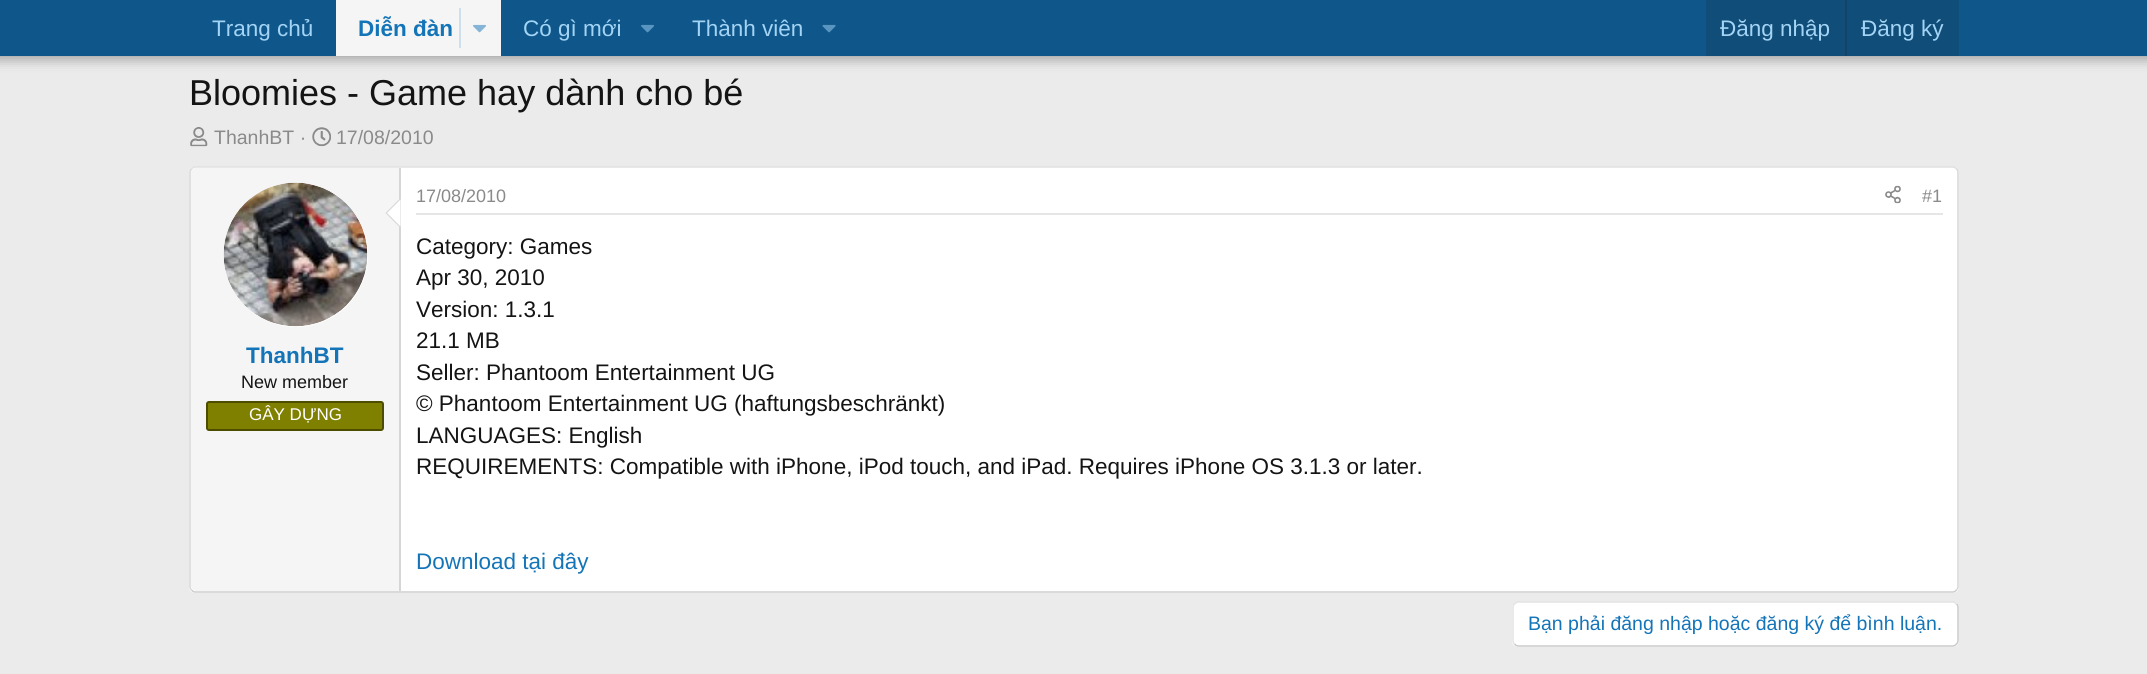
#include <cairo.h>
#include <math.h>
#include <stddef.h>

typedef struct { double x, y; const char *s; } line_t;

static void ink(cairo_t *ctx, unsigned color) {
    cairo_set_source_rgb(ctx, (color >> 16) / 255.0, (color >> 8 & 255) / 255.0, (color & 255) / 255.0);
}

static void round_path(cairo_t *ctx, double x, double y, double w, double h, double r) {
    cairo_new_sub_path(ctx);
    cairo_arc(ctx, x + w - r, y + h - r, r, 0, M_PI / 2);
    cairo_arc(ctx, x + r, y + h - r, r, M_PI / 2, M_PI);
    cairo_arc(ctx, x + r, y + r, r, M_PI, 1.5 * M_PI);
    cairo_arc(ctx, x + w - r, y + r, r, 1.5 * M_PI, 2 * M_PI);
    cairo_close_path(ctx);
}

static void blur_box(cairo_t *ctx, double x, double y, double w, double h, double r, double blur, double alpha) {
    cairo_push_group_with_content(ctx, CAIRO_CONTENT_ALPHA);
    cairo_set_operator(ctx, CAIRO_OPERATOR_SOURCE);
    for (int i = 15; i >= -15 && fmin(w, h) + blur * i / 3 > 0; i -= 2) {
        double e = blur * i / 6;
        cairo_set_source_rgba(ctx, 0, 0, 0, alpha * erfc((i - 1) / 8.5) / 2);
        round_path(ctx, x - e, y - e, w + 2 * e, h + 2 * e, fmax(0, fmin(r + e + blur * .6, fmin(w, h) / 2 + e)));
        cairo_fill(ctx);
    }
    cairo_pattern_t *soft = cairo_pop_group(ctx);
    cairo_mask(ctx, soft);
    cairo_pattern_destroy(soft);
}

static void paste(cairo_t *ctx, const char *path, double x, double y, double w, double h) {
    cairo_surface_t *image = cairo_image_surface_create_from_png(path);
    cairo_save(ctx);
    cairo_set_source_surface(ctx, image, x, y);
    cairo_rectangle(ctx, x, y, w, h);
    cairo_fill(ctx);
    cairo_restore(ctx);
    cairo_surface_destroy(image);
}

int main(void) {
    cairo_surface_t *surface = cairo_image_surface_create(CAIRO_FORMAT_RGB24, 2147, 674);
    cairo_t *ctx = cairo_create(surface);
    cairo_font_options_t *options = cairo_font_options_create();
    cairo_font_options_set_hint_metrics(options, CAIRO_HINT_METRICS_OFF);
    cairo_font_options_set_hint_style(options, CAIRO_HINT_STYLE_NONE);
    cairo_set_font_options(ctx, options);
    cairo_set_miter_limit(ctx, 4);
    ink(ctx, 0xEBEBEB);
    cairo_paint(ctx);
    ink(ctx, 0x000000);
    blur_box(ctx, -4, -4, 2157, 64, 0, 6, 0.3);
    ink(ctx, 0x0F578A);
    cairo_rectangle(ctx, 0, 0, 2147, 56);
    cairo_fill(ctx);
    cairo_select_font_face(ctx, "Liberation Sans", CAIRO_FONT_SLANT_NORMAL, CAIRO_FONT_WEIGHT_NORMAL);
    cairo_set_font_size(ctx, 22.5);
    ink(ctx, 0xA3D4F5);
    cairo_move_to(ctx, 212, 36);
    cairo_show_text(ctx, "Trang chủ");
    ink(ctx, 0xF5F5F5);
    cairo_rectangle(ctx, 336, 0, 165, 56);
    cairo_fill(ctx);
    cairo_select_font_face(ctx, "Liberation Sans", CAIRO_FONT_SLANT_NORMAL, CAIRO_FONT_WEIGHT_BOLD);
    ink(ctx, 0x1474B8);
    cairo_move_to(ctx, 358, 36);
    cairo_show_text(ctx, "Diễn đàn");
    ink(ctx, 0xCEDFEB);
    cairo_rectangle(ctx, 459, 8, 2, 40);
    cairo_fill(ctx);
    paste(ctx, "media/1.png", 473, 24, 13, 9);
    cairo_select_font_face(ctx, "Liberation Sans", CAIRO_FONT_SLANT_NORMAL, CAIRO_FONT_WEIGHT_NORMAL);
    ink(ctx, 0xA3D4F5);
    cairo_move_to(ctx, 523, 36);
    cairo_show_text(ctx, "Có gì mới");
    paste(ctx, "media/2.png", 641, 24, 13, 9);
    cairo_move_to(ctx, 692, 36);
    cairo_show_text(ctx, "Thành viên");
    paste(ctx, "media/3.png", 822, 24, 14, 9);
    ink(ctx, 0x104D78);
    cairo_rectangle(ctx, 1706, 0, 253, 56);
    cairo_fill(ctx);
    ink(ctx, 0xA3D4F5);
    cairo_move_to(ctx, 1720, 36);
    cairo_show_text(ctx, "Đăng nhập");
    ink(ctx, 0x114469);
    cairo_rectangle(ctx, 1845, 0, 2, 56);
    cairo_fill(ctx);
    ink(ctx, 0xA3D4F5);
    cairo_move_to(ctx, 1861, 36);
    cairo_show_text(ctx, "Đăng ký");
    cairo_set_font_size(ctx, 36);
    ink(ctx, 0x141414);
    cairo_move_to(ctx, 189, 105);
    cairo_show_text(ctx, "Bloomies - Game hay dành cho bé");
    paste(ctx, "media/4.png", 190, 127, 18, 20);
    cairo_set_font_size(ctx, 19.5);
    ink(ctx, 0x8A8A8A);
    cairo_move_to(ctx, 214, 144);
    cairo_show_text(ctx, "ThanhBT ·");
    paste(ctx, "media/5.png", 312, 127, 19, 20);
    cairo_move_to(ctx, 336, 144);
    cairo_show_text(ctx, "17/08/2010");
    ink(ctx, 0xFFFFFF);
    round_path(ctx, 189, 167, 1770, 426, 6);
    cairo_fill(ctx);
    cairo_new_path(ctx);
    cairo_move_to(ctx, 191.5, 169);
    cairo_curve_to(ctx, 192.5, 168, 193.5, 167, 195, 167);
    cairo_line_to(ctx, 1953, 167);
    cairo_curve_to(ctx, 1954.5, 167, 1955.5, 168, 1956.5, 169);
    ink(ctx, 0xE0E0E0);
    cairo_set_line_width(ctx, 1.5);
    cairo_stroke(ctx);
    cairo_new_path(ctx);
    cairo_move_to(ctx, 1956.5, 169);
    cairo_curve_to(ctx, 1957.5, 170, 1958, 171, 1958, 172.5);
    cairo_line_to(ctx, 1958, 586.5);
    cairo_curve_to(ctx, 1958, 588, 1957.5, 589, 1956.5, 590);
    ink(ctx, 0xD6D6D6);
    cairo_stroke(ctx);
    cairo_new_path(ctx);
    cairo_move_to(ctx, 1956.5, 590);
    cairo_curve_to(ctx, 1955.5, 591, 1954.5, 592, 1953, 592);
    cairo_line_to(ctx, 195, 592);
    cairo_curve_to(ctx, 193.5, 592, 192.5, 591, 191.5, 590);
    ink(ctx, 0xCCCCCC);
    cairo_stroke(ctx);
    cairo_new_path(ctx);
    cairo_move_to(ctx, 191.5, 590);
    cairo_curve_to(ctx, 190.5, 589, 190, 588, 190, 586.5);
    cairo_line_to(ctx, 190, 172.5);
    cairo_curve_to(ctx, 190, 171, 190.5, 170, 191.5, 169);
    ink(ctx, 0xD6D6D6);
    cairo_stroke(ctx);
    ink(ctx, 0xF5F5F5);
    cairo_new_path(ctx);
    cairo_move_to(ctx, 196, 168);
    cairo_line_to(ctx, 401, 168);
    cairo_line_to(ctx, 401, 591);
    cairo_line_to(ctx, 196, 591);
    cairo_curve_to(ctx, 193, 591, 191, 589, 191, 586);
    cairo_line_to(ctx, 191, 173);
    cairo_curve_to(ctx, 191, 170, 193, 168, 196, 168);
    cairo_close_path(ctx);
    cairo_fill(ctx);
    ink(ctx, 0xD6D6D6);
    cairo_rectangle(ctx, 399, 168, 2, 423);
    cairo_fill(ctx);
    ink(ctx, 0xFFFFFF);
    cairo_arc(ctx, 296, 255, 72, 0, 2 * M_PI);
    cairo_fill(ctx);
    paste(ctx, "media/6.png", 223, 182, 145, 145);
    ink(ctx, 0xD6D6D6);
    cairo_new_path(ctx);
    cairo_move_to(ctx, 400.5, 198);
    cairo_line_to(ctx, 400.5, 228);
    cairo_line_to(ctx, 385.5, 213);
    cairo_close_path(ctx);
    cairo_fill(ctx);
    ink(ctx, 0xFFFFFF);
    cairo_new_path(ctx);
    cairo_move_to(ctx, 400.5, 199.5);
    cairo_line_to(ctx, 400.5, 226.5);
    cairo_line_to(ctx, 387, 213);
    cairo_close_path(ctx);
    cairo_fill(ctx);
    cairo_select_font_face(ctx, "Liberation Sans", CAIRO_FONT_SLANT_NORMAL, CAIRO_FONT_WEIGHT_BOLD);
    cairo_set_font_size(ctx, 22.5);
    ink(ctx, 0x1474B8);
    cairo_move_to(ctx, 246, 363);
    cairo_show_text(ctx, "ThanhBT");
    cairo_select_font_face(ctx, "Liberation Sans", CAIRO_FONT_SLANT_NORMAL, CAIRO_FONT_WEIGHT_NORMAL);
    cairo_set_font_size(ctx, 18);
    ink(ctx, 0x141414);
    cairo_move_to(ctx, 241, 388);
    cairo_show_text(ctx, "New member");
    ink(ctx, 0x808000);
    round_path(ctx, 207, 402, 176, 28, 2);
    cairo_fill_preserve(ctx);
    ink(ctx, 0x4D4D00);
    cairo_set_line_width(ctx, 2);
    cairo_stroke(ctx);
    cairo_set_font_size(ctx, 17);
    ink(ctx, 0xFFFFFF);
    cairo_move_to(ctx, 249, 420);
    cairo_show_text(ctx, "GÂY DỰNG");
    ink(ctx, 0xE6E6E6);
    cairo_rectangle(ctx, 416, 213, 1527, 2);
    cairo_fill(ctx);
    cairo_set_font_size(ctx, 18);
    ink(ctx, 0x8A8A8A);
    cairo_move_to(ctx, 416, 202);
    cairo_show_text(ctx, "17/08/2010");
    paste(ctx, "media/7.png", 1885, 185, 16, 19);
    cairo_move_to(ctx, 1922, 202);
    cairo_show_text(ctx, "#1");
    cairo_set_font_size(ctx, 22.5);
    ink(ctx, 0x141414);
    {
        static const line_t items[] = {
            {416, 254, "Category: Games"},
            {416, 285, "Apr 30, 2010"},
            {416, 317, "Version: 1.3.1"},
            {416, 348, "21.1 MB"},
            {416, 380, "Seller: Phantoom Entertainment UG"},
            {416, 411, "© Phantoom Entertainment UG (haftungsbeschränkt)"},
            {416, 443, "LANGUAGES: English"},
            {416, 474, "REQUIREMENTS: Compatible with iPhone, iPod touch, and iPad. Requires iPhone OS 3.1.3 or later."},
        };
        for (size_t i = 0; i < sizeof items / sizeof *items; i++) {
            cairo_move_to(ctx, items[i].x, items[i].y);
            cairo_show_text(ctx, items[i].s);
        }
    }
    ink(ctx, 0x1474B8);
    cairo_move_to(ctx, 416, 569);
    cairo_show_text(ctx, "Download tại đây");
    ink(ctx, 0xFFFFFF);
    round_path(ctx, 1512, 602, 447, 45, 6);
    cairo_fill(ctx);
    cairo_new_path(ctx);
    cairo_move_to(ctx, 1956.5, 604);
    cairo_curve_to(ctx, 1957.5, 605, 1958, 606, 1958, 607.5);
    cairo_line_to(ctx, 1958, 640.5);
    cairo_curve_to(ctx, 1958, 642, 1957.5, 643, 1956.5, 644);
    cairo_curve_to(ctx, 1955.5, 645, 1954.5, 646, 1953, 646);
    cairo_line_to(ctx, 1518, 646);
    cairo_curve_to(ctx, 1516.5, 646, 1515.5, 645, 1514.5, 644);
    ink(ctx, 0xC9C9C9);
    cairo_set_line_width(ctx, 1.5);
    cairo_stroke(ctx);
    cairo_new_path(ctx);
    cairo_move_to(ctx, 1514.5, 644);
    cairo_curve_to(ctx, 1513.5, 643, 1513, 642, 1513, 640.5);
    cairo_line_to(ctx, 1513, 607.5);
    cairo_curve_to(ctx, 1513, 606, 1513.5, 605, 1514.5, 604);
    cairo_curve_to(ctx, 1515.5, 603, 1516.5, 602, 1518, 602);
    cairo_line_to(ctx, 1953, 602);
    cairo_curve_to(ctx, 1954.5, 602, 1955.5, 603, 1956.5, 604);
    ink(ctx, 0xE3E3E3);
    cairo_stroke(ctx);
    cairo_set_font_size(ctx, 19.5);
    ink(ctx, 0x1474B8);
    cairo_move_to(ctx, 1528, 630);
    cairo_show_text(ctx, "Bạn phải đăng nhập hoặc đăng ký để bình luận.");
    cairo_surface_write_to_png(surface, "image.png");
    cairo_font_options_destroy(options);
    cairo_destroy(ctx);
    cairo_surface_destroy(surface);
    return 0;
}
